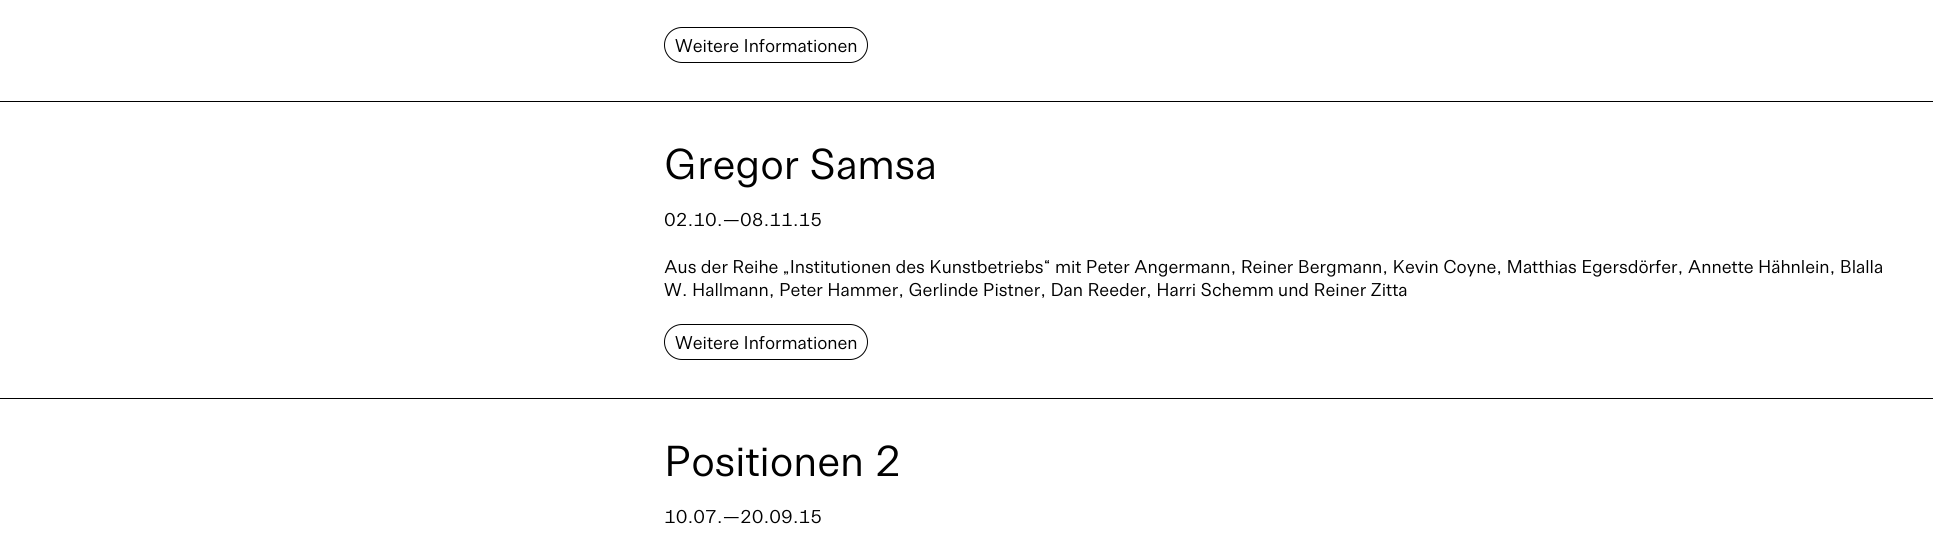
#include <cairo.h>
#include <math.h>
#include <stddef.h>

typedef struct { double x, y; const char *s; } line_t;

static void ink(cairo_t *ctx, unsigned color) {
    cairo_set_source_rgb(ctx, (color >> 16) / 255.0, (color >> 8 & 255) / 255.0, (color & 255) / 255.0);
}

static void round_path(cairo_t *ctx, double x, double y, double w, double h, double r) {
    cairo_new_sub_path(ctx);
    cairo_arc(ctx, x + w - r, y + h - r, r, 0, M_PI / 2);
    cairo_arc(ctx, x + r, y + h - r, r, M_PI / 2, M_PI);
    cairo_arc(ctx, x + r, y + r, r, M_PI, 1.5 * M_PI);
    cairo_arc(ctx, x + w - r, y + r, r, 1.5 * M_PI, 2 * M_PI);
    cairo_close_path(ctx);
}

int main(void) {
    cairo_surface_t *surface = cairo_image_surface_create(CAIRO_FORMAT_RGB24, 1933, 560);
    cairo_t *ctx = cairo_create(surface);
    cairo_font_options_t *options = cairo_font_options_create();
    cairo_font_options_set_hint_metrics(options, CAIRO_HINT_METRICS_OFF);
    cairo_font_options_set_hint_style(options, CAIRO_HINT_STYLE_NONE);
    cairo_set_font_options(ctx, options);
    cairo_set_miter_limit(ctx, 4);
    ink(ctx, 0xFFFFFF);
    cairo_paint(ctx);
    round_path(ctx, 664.5, 27.5, 203, 35, 17.5);
    ink(ctx, 0x000000);
    cairo_set_line_width(ctx, 1);
    cairo_stroke(ctx);
    cairo_select_font_face(ctx, "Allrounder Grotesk", CAIRO_FONT_SLANT_NORMAL, CAIRO_FONT_WEIGHT_NORMAL);
    cairo_set_font_size(ctx, 18);
    cairo_move_to(ctx, 675, 52);
    cairo_show_text(ctx, "Weitere Informationen");
    cairo_rectangle(ctx, 0, 101, 1933, 1);
    cairo_fill(ctx);
    cairo_set_font_size(ctx, 42);
    cairo_move_to(ctx, 664, 179);
    cairo_show_text(ctx, "Gregor Samsa");
    cairo_set_font_size(ctx, 18);
    {
        static const line_t items[] = {
            {664, 226, "02.10.—08.11.15"},
            {664, 273, "Aus der Reihe „Institutionen des Kunstbetriebs“ mit Peter Angermann, Reiner Bergmann, Kevin Coyne, Matthias Egersdörfer, Annette Hähnlein, Blalla"},
            {664, 296, "W. Hallmann, Peter Hammer, Gerlinde Pistner, Dan Reeder, Harri Schemm und Reiner Zitta"},
        };
        for (size_t i = 0; i < sizeof items / sizeof *items; i++) {
            cairo_move_to(ctx, items[i].x, items[i].y);
            cairo_show_text(ctx, items[i].s);
        }
    }
    round_path(ctx, 664.5, 324.5, 203, 35, 17.5);
    cairo_stroke(ctx);
    cairo_move_to(ctx, 675, 349);
    cairo_show_text(ctx, "Weitere Informationen");
    cairo_rectangle(ctx, 0, 398, 1933, 1);
    cairo_fill(ctx);
    cairo_set_font_size(ctx, 42);
    cairo_move_to(ctx, 664, 476);
    cairo_show_text(ctx, "Positionen 2");
    cairo_set_font_size(ctx, 18);
    cairo_move_to(ctx, 664, 523);
    cairo_show_text(ctx, "10.07.—20.09.15");
    cairo_surface_write_to_png(surface, "image.png");
    cairo_font_options_destroy(options);
    cairo_destroy(ctx);
    cairo_surface_destroy(surface);
    return 0;
}
